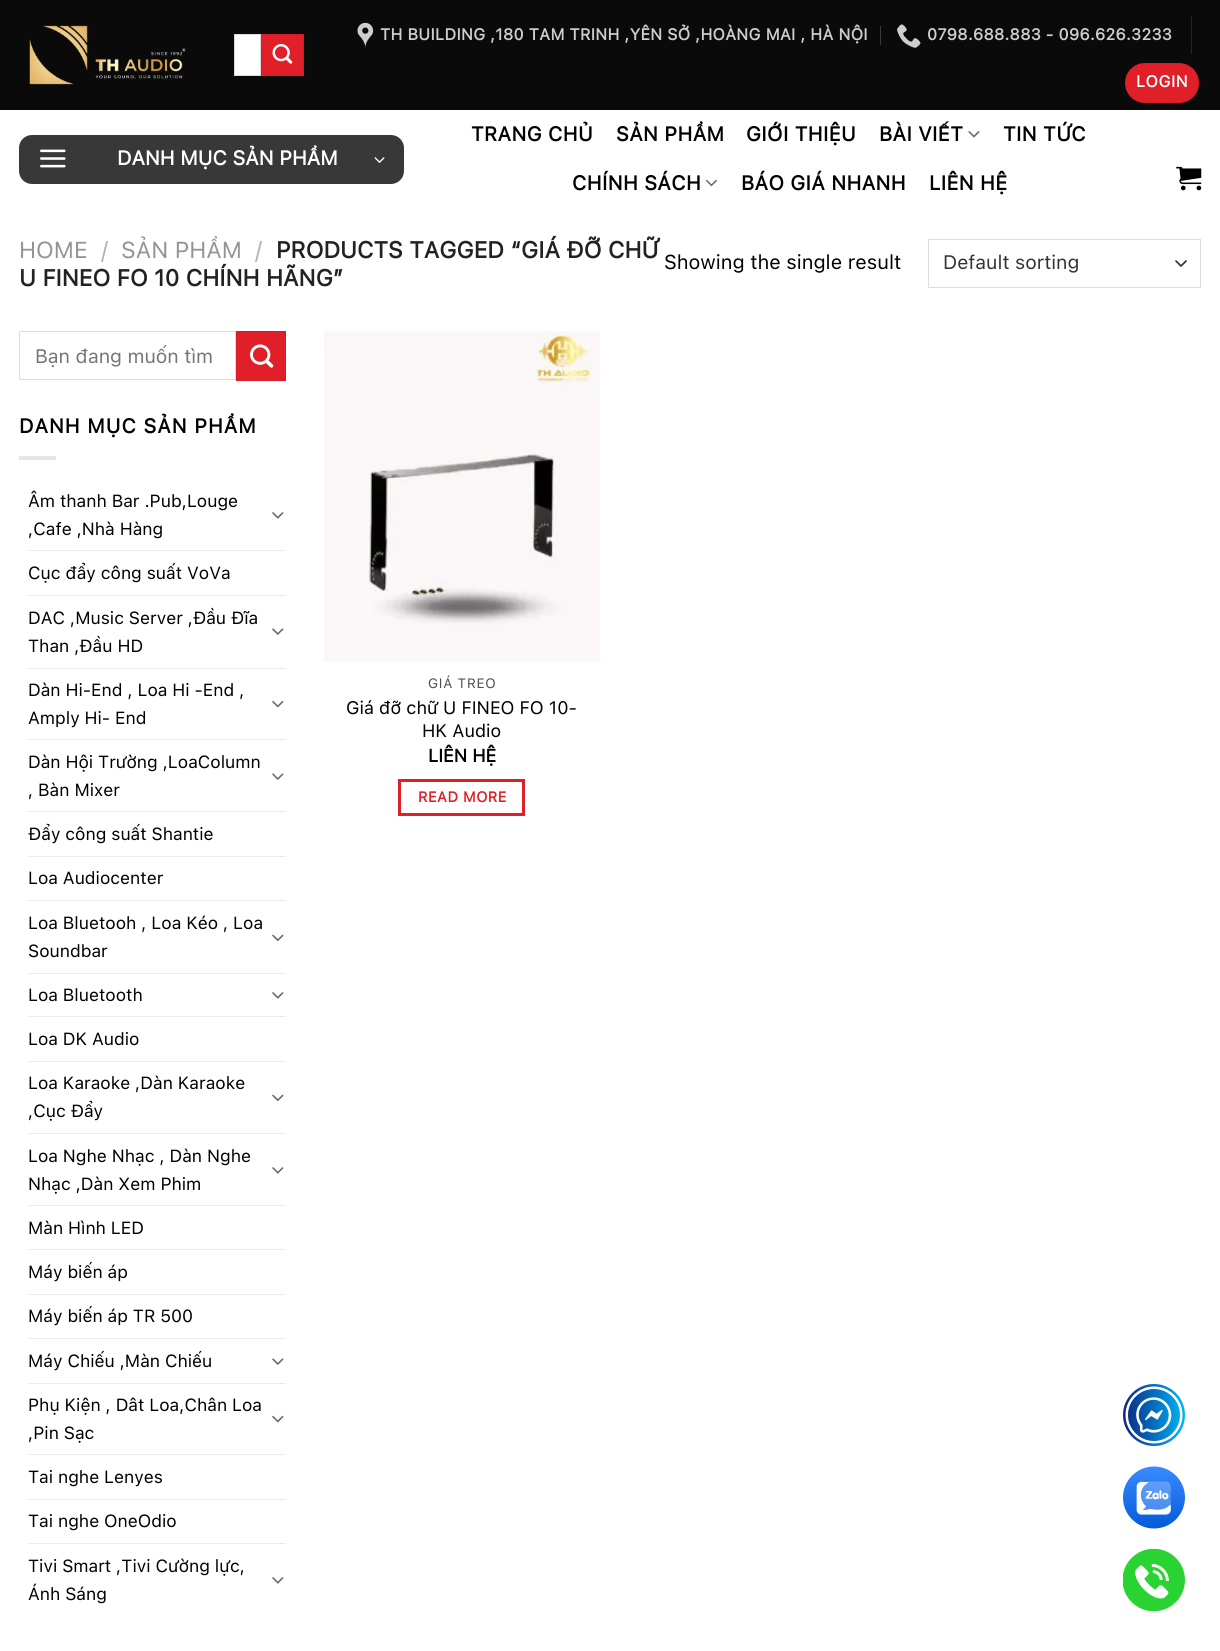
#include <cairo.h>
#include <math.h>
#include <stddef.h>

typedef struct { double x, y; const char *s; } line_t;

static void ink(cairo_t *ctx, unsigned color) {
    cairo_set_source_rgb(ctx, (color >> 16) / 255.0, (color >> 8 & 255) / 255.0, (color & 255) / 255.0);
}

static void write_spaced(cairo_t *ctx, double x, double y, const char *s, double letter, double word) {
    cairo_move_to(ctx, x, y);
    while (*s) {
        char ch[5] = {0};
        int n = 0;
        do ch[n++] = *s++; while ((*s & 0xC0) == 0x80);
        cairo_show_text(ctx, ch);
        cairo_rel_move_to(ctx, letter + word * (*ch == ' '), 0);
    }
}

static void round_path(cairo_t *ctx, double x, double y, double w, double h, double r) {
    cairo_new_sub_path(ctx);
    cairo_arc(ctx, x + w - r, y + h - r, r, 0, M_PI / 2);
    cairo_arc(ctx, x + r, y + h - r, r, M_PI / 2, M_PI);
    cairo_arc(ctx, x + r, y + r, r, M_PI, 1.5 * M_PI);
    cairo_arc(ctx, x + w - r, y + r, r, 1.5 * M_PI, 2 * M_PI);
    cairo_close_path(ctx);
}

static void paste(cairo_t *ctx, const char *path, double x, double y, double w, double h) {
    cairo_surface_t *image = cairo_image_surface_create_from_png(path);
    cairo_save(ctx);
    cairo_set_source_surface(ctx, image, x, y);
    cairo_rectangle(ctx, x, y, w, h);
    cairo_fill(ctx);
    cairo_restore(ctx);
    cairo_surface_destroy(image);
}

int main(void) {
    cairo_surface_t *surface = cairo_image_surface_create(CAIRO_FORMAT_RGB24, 1220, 1651);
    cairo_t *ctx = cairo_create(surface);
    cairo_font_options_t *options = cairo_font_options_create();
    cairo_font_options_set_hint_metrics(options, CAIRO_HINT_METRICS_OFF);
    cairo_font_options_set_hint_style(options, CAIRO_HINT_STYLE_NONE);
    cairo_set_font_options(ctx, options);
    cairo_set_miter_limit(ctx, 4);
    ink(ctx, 0xFFFFFF);
    cairo_paint(ctx);
    ink(ctx, 0x0A0A0A);
    cairo_rectangle(ctx, 0, 0, 1220, 110);
    cairo_fill(ctx);
    paste(ctx, "media/1.png", 29, 25, 157, 60);
    ink(ctx, 0xFFFFFF);
    cairo_rectangle(ctx, 234.5, 34.5, 26, 41);
    cairo_fill_preserve(ctx);
    ink(ctx, 0xDDDDDD);
    cairo_set_line_width(ctx, 1);
    cairo_stroke(ctx);
    ink(ctx, 0xE01F28);
    cairo_rectangle(ctx, 261.5, 34.5, 42, 41);
    cairo_fill_preserve(ctx);
    ink(ctx, 0xD51D26);
    cairo_stroke(ctx);
    paste(ctx, "media/2.png", 272, 43, 21, 21);
    paste(ctx, "media/3.png", 357, 22, 17, 26);
    cairo_select_font_face(ctx, "SF Pro Text", CAIRO_FONT_SLANT_NORMAL, CAIRO_FONT_WEIGHT_BOLD);
    cairo_set_font_size(ctx, 16);
    ink(ctx, 0xCECECE);
    write_spaced(ctx, 380, 40, "TH BUILDING ,180 TAM TRINH ,YÊN SỞ ,HOÀNG MAI , HÀ NỘI", 0.32, 0);
    ink(ctx, 0x3B3B3B);
    cairo_rectangle(ctx, 880, 26, 1, 19);
    cairo_fill(ctx);
    paste(ctx, "media/4.png", 897, 24, 24, 24);
    ink(ctx, 0xCECECE);
    write_spaced(ctx, 927, 40, "0798.688.883 - 096.626.3233", 0.32, 0);
    ink(ctx, 0x232323);
    cairo_rectangle(ctx, 1191, 16, 1, 38);
    cairo_fill(ctx);
    ink(ctx, 0xE01F28);
    round_path(ctx, 1125, 63, 74, 40, 20);
    cairo_fill(ctx);
    cairo_rectangle(ctx, 1125.5, 63.5, 73, 39);
    cairo_set_source_rgba(ctx, 0, 0, 0, 0.05);
    cairo_stroke(ctx);
    ink(ctx, 0xFFFFFF);
    write_spaced(ctx, 1136, 87, "LOGIN", 0.5, 0);
    ink(ctx, 0x383838);
    round_path(ctx, 19, 135, 385, 49, 13);
    cairo_fill(ctx);
    paste(ctx, "media/5.png", 40, 149, 26, 19);
    cairo_set_font_size(ctx, 20);
    ink(ctx, 0xFFFFFF);
    cairo_move_to(ctx, 117, 165);
    cairo_show_text(ctx, "DANH MỤC SẢN PHẨM");
    paste(ctx, "media/6.png", 374, 157, 11, 6);
    ink(ctx, 0x000000);
    {
        static const line_t items[] = {
            {471, 141, "TRANG CHỦ"},
            {616, 141, "SẢN PHẨM"},
            {746, 141, "GIỚI THIỆU"},
            {879, 141, "BÀI VIẾT"},
        };
        for (size_t i = 0; i < sizeof items / sizeof *items; i++) {
            write_spaced(ctx, items[i].x, items[i].y, items[i].s, 0.4, 0);
        }
    }
    paste(ctx, "media/7.png", 968, 131, 12, 7);
    write_spaced(ctx, 1003, 141, "TIN TỨC", 0.4, 0);
    write_spaced(ctx, 572, 190, "CHÍNH SÁCH", 0.4, 0);
    paste(ctx, "media/8.png", 705, 179, 12, 8);
    write_spaced(ctx, 741, 190, "BÁO GIÁ NHANH", 0.4, 0);
    write_spaced(ctx, 929, 190, "LIÊN HỆ", 0.4, 0);
    paste(ctx, "media/9.png", 1176, 166, 26, 25);
    cairo_select_font_face(ctx, "SF Pro Text", CAIRO_FONT_SLANT_NORMAL, CAIRO_FONT_WEIGHT_NORMAL);
    cairo_set_font_size(ctx, 23);
    ink(ctx, 0x949494);
    cairo_move_to(ctx, 19, 258);
    cairo_show_text(ctx, "HOME");
    ink(ctx, 0xB2B2B2);
    cairo_move_to(ctx, 101, 258);
    cairo_show_text(ctx, "/");
    ink(ctx, 0x949494);
    cairo_move_to(ctx, 121, 258);
    cairo_show_text(ctx, "SẢN PHẨM");
    ink(ctx, 0xB2B2B2);
    cairo_move_to(ctx, 255, 258);
    cairo_show_text(ctx, "/");
    cairo_select_font_face(ctx, "SF Pro Text", CAIRO_FONT_SLANT_NORMAL, CAIRO_FONT_WEIGHT_BOLD);
    ink(ctx, 0x222222);
    cairo_move_to(ctx, 276, 258);
    cairo_show_text(ctx, "PRODUCTS TAGGED “GIÁ ĐỠ CHỮ");
    cairo_move_to(ctx, 19, 286);
    cairo_show_text(ctx, "U FINEO FO 10 CHÍNH HÃNG”");
    cairo_select_font_face(ctx, "SF Pro Text", CAIRO_FONT_SLANT_NORMAL, CAIRO_FONT_WEIGHT_NORMAL);
    cairo_set_font_size(ctx, 20);
    ink(ctx, 0x000000);
    cairo_move_to(ctx, 664, 269);
    cairo_show_text(ctx, "Showing the single result");
    cairo_new_path(ctx);
    cairo_move_to(ctx, 1176, 261);
    cairo_line_to(ctx, 1181, 266);
    cairo_line_to(ctx, 1186, 261);
    ink(ctx, 0x333333);
    cairo_set_line_width(ctx, 1.7);
    cairo_set_line_cap(ctx, CAIRO_LINE_CAP_ROUND);
    cairo_set_line_join(ctx, CAIRO_LINE_JOIN_ROUND);
    cairo_stroke(ctx);
    cairo_rectangle(ctx, 928.5, 239.5, 272, 48);
    ink(ctx, 0xDDDDDD);
    cairo_set_line_width(ctx, 1);
    cairo_set_line_cap(ctx, CAIRO_LINE_CAP_BUTT);
    cairo_set_line_join(ctx, CAIRO_LINE_JOIN_MITER);
    cairo_stroke(ctx);
    cairo_set_font_size(ctx, 19.5);
    ink(ctx, 0x333333);
    cairo_move_to(ctx, 943, 269);
    cairo_show_text(ctx, "Default sorting");
    cairo_rectangle(ctx, 19.5, 331.5, 216, 48);
    ink(ctx, 0xDDDDDD);
    cairo_stroke(ctx);
    ink(ctx, 0x757575);
    cairo_move_to(ctx, 35, 363);
    cairo_show_text(ctx, "Bạn đang muốn tìm");
    ink(ctx, 0xE01F28);
    cairo_rectangle(ctx, 236.5, 331.5, 49, 49);
    cairo_fill_preserve(ctx);
    ink(ctx, 0xD51D26);
    cairo_stroke(ctx);
    paste(ctx, "media/10.png", 250, 344, 24, 24);
    cairo_select_font_face(ctx, "SF Pro Text", CAIRO_FONT_SLANT_NORMAL, CAIRO_FONT_WEIGHT_BOLD);
    cairo_set_font_size(ctx, 20);
    ink(ctx, 0x000000);
    write_spaced(ctx, 19, 433, "DANH MỤC SẢN PHẨM", 1, 0);
    ink(ctx, 0xE6E6E6);
    cairo_rectangle(ctx, 19, 456, 37, 4);
    cairo_fill(ctx);
    cairo_select_font_face(ctx, "SF Pro Text", CAIRO_FONT_SLANT_NORMAL, CAIRO_FONT_WEIGHT_NORMAL);
    cairo_set_font_size(ctx, 17.5);
    ink(ctx, 0x000000);
    cairo_move_to(ctx, 28, 507);
    cairo_show_text(ctx, "Âm thanh Bar .Pub,Louge");
    cairo_move_to(ctx, 28, 535);
    cairo_show_text(ctx, ",Cafe ,Nhà Hàng");
    paste(ctx, "media/11.png", 272, 512, 12, 7);
    ink(ctx, 0xECECEC);
    cairo_rectangle(ctx, 28, 550, 258, 1);
    cairo_fill(ctx);
    ink(ctx, 0x000000);
    cairo_move_to(ctx, 28, 579);
    cairo_show_text(ctx, "Cục đẩy công suất VoVa");
    ink(ctx, 0xECECEC);
    cairo_rectangle(ctx, 28, 595, 258, 1);
    cairo_fill(ctx);
    ink(ctx, 0x000000);
    cairo_move_to(ctx, 28, 624);
    cairo_show_text(ctx, "DAC ,Music Server ,Đầu Đĩa");
    cairo_move_to(ctx, 28, 652);
    cairo_show_text(ctx, "Than ,Đầu HD");
    paste(ctx, "media/12.png", 272, 628, 12, 7);
    ink(ctx, 0xECECEC);
    cairo_rectangle(ctx, 28, 668, 258, 1);
    cairo_fill(ctx);
    ink(ctx, 0x000000);
    cairo_move_to(ctx, 28, 696);
    cairo_show_text(ctx, "Dàn Hi-End , Loa Hi -End ,");
    cairo_move_to(ctx, 28, 724);
    cairo_show_text(ctx, "Amply Hi- End");
    paste(ctx, "media/13.png", 272, 700, 12, 8);
    ink(ctx, 0xECECEC);
    cairo_rectangle(ctx, 28, 739, 258, 1);
    cairo_fill(ctx);
    ink(ctx, 0x000000);
    cairo_move_to(ctx, 28, 768);
    cairo_show_text(ctx, "Dàn Hội Trường ,LoaColumn");
    cairo_move_to(ctx, 28, 796);
    cairo_show_text(ctx, ", Bàn Mixer");
    paste(ctx, "media/12.png", 272, 773, 12, 7);
    ink(ctx, 0xECECEC);
    cairo_rectangle(ctx, 28, 811, 258, 1);
    cairo_fill(ctx);
    ink(ctx, 0x000000);
    cairo_move_to(ctx, 28, 840);
    cairo_show_text(ctx, "Đẩy công suất Shantie");
    ink(ctx, 0xECECEC);
    cairo_rectangle(ctx, 28, 856, 258, 1);
    cairo_fill(ctx);
    ink(ctx, 0x000000);
    cairo_move_to(ctx, 28, 884);
    cairo_show_text(ctx, "Loa Audiocenter");
    ink(ctx, 0xECECEC);
    cairo_rectangle(ctx, 28, 900, 258, 1);
    cairo_fill(ctx);
    ink(ctx, 0x000000);
    cairo_move_to(ctx, 28, 929);
    cairo_show_text(ctx, "Loa Bluetooh , Loa Kéo , Loa");
    cairo_move_to(ctx, 28, 957);
    cairo_show_text(ctx, "Soundbar");
    paste(ctx, "media/14.png", 272, 934, 12, 8);
    ink(ctx, 0xECECEC);
    cairo_rectangle(ctx, 28, 973, 258, 1);
    cairo_fill(ctx);
    ink(ctx, 0x000000);
    cairo_move_to(ctx, 28, 1001);
    cairo_show_text(ctx, "Loa Bluetooth");
    paste(ctx, "media/11.png", 272, 992, 12, 7);
    ink(ctx, 0xECECEC);
    cairo_rectangle(ctx, 28, 1016, 258, 1);
    cairo_fill(ctx);
    ink(ctx, 0x000000);
    cairo_move_to(ctx, 28, 1045);
    cairo_show_text(ctx, "Loa DK Audio");
    ink(ctx, 0xECECEC);
    cairo_rectangle(ctx, 28, 1061, 258, 1);
    cairo_fill(ctx);
    ink(ctx, 0x000000);
    cairo_move_to(ctx, 28, 1089);
    cairo_show_text(ctx, "Loa Karaoke ,Dàn Karaoke");
    cairo_move_to(ctx, 28, 1117);
    cairo_show_text(ctx, ",Cục Đẩy");
    paste(ctx, "media/14.png", 272, 1094, 12, 8);
    ink(ctx, 0xECECEC);
    cairo_rectangle(ctx, 28, 1133, 258, 1);
    cairo_fill(ctx);
    ink(ctx, 0x000000);
    cairo_move_to(ctx, 28, 1162);
    cairo_show_text(ctx, "Loa Nghe Nhạc , Dàn Nghe");
    cairo_move_to(ctx, 28, 1190);
    cairo_show_text(ctx, "Nhạc ,Dàn Xem Phim");
    paste(ctx, "media/11.png", 272, 1167, 12, 7);
    ink(ctx, 0xECECEC);
    cairo_rectangle(ctx, 28, 1205, 258, 1);
    cairo_fill(ctx);
    ink(ctx, 0x000000);
    cairo_move_to(ctx, 28, 1234);
    cairo_show_text(ctx, "Màn Hình LED");
    ink(ctx, 0xECECEC);
    cairo_rectangle(ctx, 28, 1249, 258, 1);
    cairo_fill(ctx);
    ink(ctx, 0x000000);
    cairo_move_to(ctx, 28, 1278);
    cairo_show_text(ctx, "Máy biến áp");
    ink(ctx, 0xECECEC);
    cairo_rectangle(ctx, 28, 1294, 258, 1);
    cairo_fill(ctx);
    ink(ctx, 0x000000);
    cairo_move_to(ctx, 28, 1322);
    cairo_show_text(ctx, "Máy biến áp TR 500");
    ink(ctx, 0xECECEC);
    cairo_rectangle(ctx, 28, 1338, 258, 1);
    cairo_fill(ctx);
    ink(ctx, 0x000000);
    cairo_move_to(ctx, 28, 1367);
    cairo_show_text(ctx, "Máy Chiếu ,Màn Chiếu");
    paste(ctx, "media/12.png", 272, 1358, 12, 7);
    ink(ctx, 0xECECEC);
    cairo_rectangle(ctx, 28, 1383, 258, 1);
    cairo_fill(ctx);
    ink(ctx, 0x000000);
    cairo_move_to(ctx, 28, 1411);
    cairo_show_text(ctx, "Phụ Kiện , Dât Loa,Chân Loa");
    cairo_move_to(ctx, 28, 1439);
    cairo_show_text(ctx, ",Pin Sạc");
    paste(ctx, "media/13.png", 272, 1415, 12, 8);
    ink(ctx, 0xECECEC);
    cairo_rectangle(ctx, 28, 1454, 258, 1);
    cairo_fill(ctx);
    ink(ctx, 0x000000);
    cairo_move_to(ctx, 28, 1483);
    cairo_show_text(ctx, "Tai nghe Lenyes");
    ink(ctx, 0xECECEC);
    cairo_rectangle(ctx, 28, 1499, 258, 1);
    cairo_fill(ctx);
    ink(ctx, 0x000000);
    cairo_move_to(ctx, 28, 1527);
    cairo_show_text(ctx, "Tai nghe OneOdio");
    ink(ctx, 0xECECEC);
    cairo_rectangle(ctx, 28, 1543, 258, 1);
    cairo_fill(ctx);
    ink(ctx, 0x000000);
    cairo_move_to(ctx, 28, 1572);
    cairo_show_text(ctx, "Tivi Smart ,Tivi Cường lực,");
    cairo_move_to(ctx, 28, 1600);
    cairo_show_text(ctx, "Ánh Sáng");
    paste(ctx, "media/11.png", 272, 1577, 12, 7);
    paste(ctx, "media/15.png", 324, 331, 276, 331);
    cairo_set_font_size(ctx, 13.5);
    ink(ctx, 0x4D4D4D);
    write_spaced(ctx, 428, 688, "GIÁ TREO", 0.75, 0);
    cairo_set_font_size(ctx, 18);
    ink(ctx, 0x000000);
    cairo_move_to(ctx, 346, 714);
    cairo_show_text(ctx, "Giá đỡ chữ U FINEO FO 10-");
    cairo_move_to(ctx, 422, 737);
    cairo_show_text(ctx, "HK Audio");
    cairo_select_font_face(ctx, "SF Pro Text", CAIRO_FONT_SLANT_NORMAL, CAIRO_FONT_WEIGHT_BOLD);
    cairo_move_to(ctx, 428, 762);
    cairo_show_text(ctx, "LIÊN HỆ");
    cairo_rectangle(ctx, 399.5, 780.5, 124, 34);
    ink(ctx, 0xE01F28);
    cairo_set_line_width(ctx, 3);
    cairo_stroke(ctx);
    cairo_set_font_size(ctx, 14.5);
    write_spaced(ctx, 418, 802, "READ MORE", 0.5, 0);
    paste(ctx, "media/16.png", 1123, 1384, 62, 62);
    paste(ctx, "media/17.png", 1123, 1466, 62, 63);
    paste(ctx, "media/18.png", 1123, 1549, 62, 62);
    cairo_surface_write_to_png(surface, "image.png");
    cairo_font_options_destroy(options);
    cairo_destroy(ctx);
    cairo_surface_destroy(surface);
    return 0;
}
